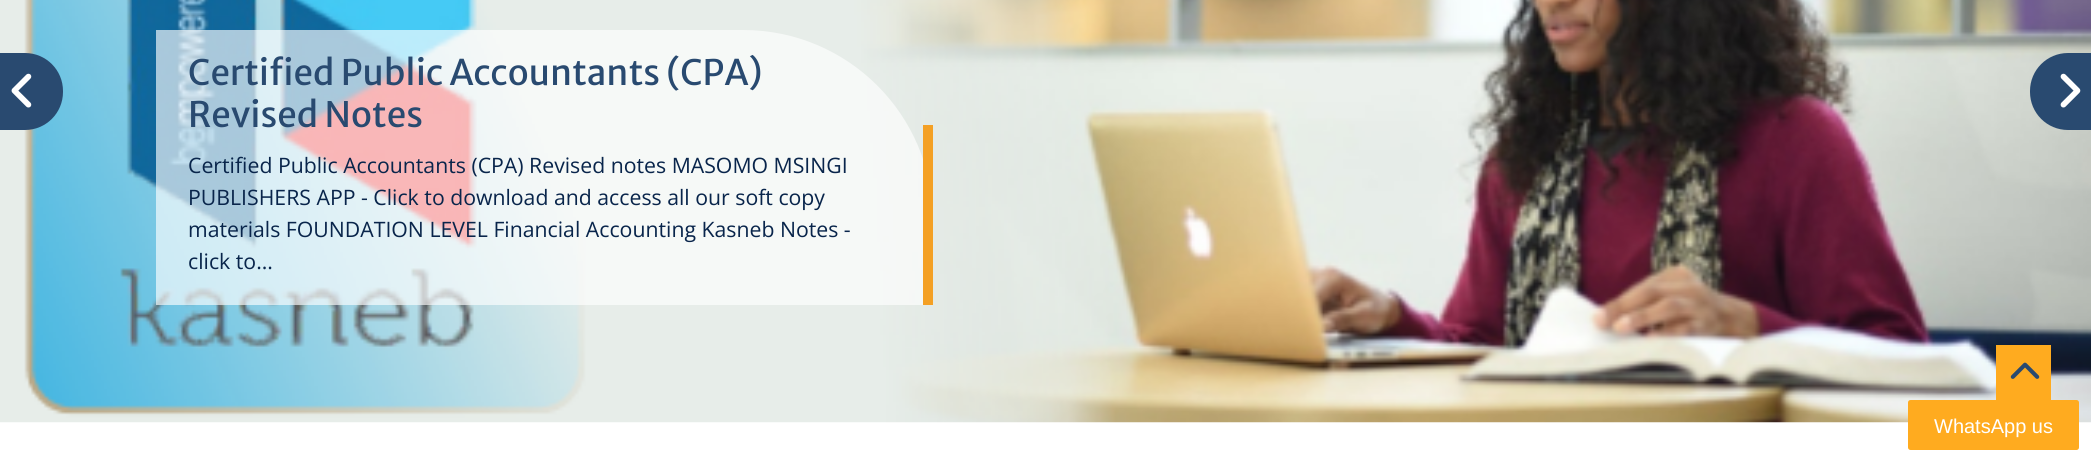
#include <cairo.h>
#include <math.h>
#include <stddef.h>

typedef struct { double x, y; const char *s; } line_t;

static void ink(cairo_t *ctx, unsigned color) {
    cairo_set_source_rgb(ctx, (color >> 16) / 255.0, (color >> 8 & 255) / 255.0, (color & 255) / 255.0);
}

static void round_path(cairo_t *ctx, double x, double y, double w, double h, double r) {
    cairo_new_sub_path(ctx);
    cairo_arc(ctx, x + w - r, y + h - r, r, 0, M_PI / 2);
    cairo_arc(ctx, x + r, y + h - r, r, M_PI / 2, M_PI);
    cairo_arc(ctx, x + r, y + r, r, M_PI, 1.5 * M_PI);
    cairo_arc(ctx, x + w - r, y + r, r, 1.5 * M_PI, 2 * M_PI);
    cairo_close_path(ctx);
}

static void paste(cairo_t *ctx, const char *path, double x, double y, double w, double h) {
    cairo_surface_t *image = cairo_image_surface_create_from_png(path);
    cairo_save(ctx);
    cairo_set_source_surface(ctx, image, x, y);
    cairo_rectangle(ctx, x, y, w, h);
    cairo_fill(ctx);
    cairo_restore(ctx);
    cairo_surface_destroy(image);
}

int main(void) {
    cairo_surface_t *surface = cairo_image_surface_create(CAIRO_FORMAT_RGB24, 2091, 462);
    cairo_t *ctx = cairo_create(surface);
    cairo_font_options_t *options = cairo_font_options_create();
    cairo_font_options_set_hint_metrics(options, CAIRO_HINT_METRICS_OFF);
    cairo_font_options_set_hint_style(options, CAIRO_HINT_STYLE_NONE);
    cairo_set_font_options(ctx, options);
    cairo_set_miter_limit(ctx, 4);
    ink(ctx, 0xFFFFFF);
    cairo_paint(ctx);
    paste(ctx, "media/1.png", 0, 0, 2091, 423);
    ink(ctx, 0x294A70);
    cairo_new_path(ctx);
    cairo_move_to(ctx, 0, 53);
    cairo_line_to(ctx, 25, 53);
    cairo_curve_to(ctx, 46, 53, 63, 70, 63, 91);
    cairo_line_to(ctx, 63, 92);
    cairo_curve_to(ctx, 63, 113, 46, 130, 25, 130);
    cairo_line_to(ctx, 0, 130);
    cairo_close_path(ctx);
    cairo_fill(ctx);
    paste(ctx, "media/2.png", 11, 73, 21, 35);
    cairo_set_source_rgba(ctx, 1, 1, 1, 0.64);
    cairo_new_path(ctx);
    cairo_move_to(ctx, 156, 30);
    cairo_line_to(ctx, 743, 30);
    cairo_curve_to(ctx, 848, 30, 933, 115, 933, 220);
    cairo_line_to(ctx, 933, 305);
    cairo_line_to(ctx, 156, 305);
    cairo_close_path(ctx);
    cairo_fill(ctx);
    ink(ctx, 0xF4A024);
    cairo_rectangle(ctx, 923, 125, 10, 180);
    cairo_fill(ctx);
    cairo_select_font_face(ctx, "Merriweather Sans", CAIRO_FONT_SLANT_NORMAL, CAIRO_FONT_WEIGHT_NORMAL);
    cairo_set_font_size(ctx, 35);
    ink(ctx, 0x294A70);
    cairo_move_to(ctx, 188, 85);
    cairo_show_text(ctx, "Certified Public Accountants (CPA)");
    cairo_move_to(ctx, 188, 127);
    cairo_show_text(ctx, "Revised Notes");
    cairo_select_font_face(ctx, "Open Sans", CAIRO_FONT_SLANT_NORMAL, CAIRO_FONT_WEIGHT_NORMAL);
    cairo_set_font_size(ctx, 21.25);
    ink(ctx, 0x09254B);
    {
        static const line_t items[] = {
            {188, 173, "Certified Public Accountants (CPA) Revised notes MASOMO MSINGI"},
            {188, 205, "PUBLISHERS APP - Click to download and access all our soft copy"},
            {188, 237, "materials FOUNDATION LEVEL Financial Accounting Kasneb Notes -"},
            {188, 269, "click to..."},
        };
        for (size_t i = 0; i < sizeof items / sizeof *items; i++) {
            cairo_move_to(ctx, items[i].x, items[i].y);
            cairo_show_text(ctx, items[i].s);
        }
    }
    ink(ctx, 0x294A70);
    cairo_new_path(ctx);
    cairo_move_to(ctx, 2068, 53);
    cairo_line_to(ctx, 2091, 53);
    cairo_line_to(ctx, 2091, 130);
    cairo_line_to(ctx, 2068, 130);
    cairo_curve_to(ctx, 2047, 130, 2030, 113, 2030, 92);
    cairo_line_to(ctx, 2030, 91);
    cairo_curve_to(ctx, 2030, 70, 2047, 53, 2068, 53);
    cairo_close_path(ctx);
    cairo_fill(ctx);
    paste(ctx, "media/3.png", 2060, 73, 21, 35);
    ink(ctx, 0xFFAB1F);
    cairo_rectangle(ctx, 1996, 345, 55, 55);
    cairo_fill(ctx);
    paste(ctx, "media/4.png", 2010, 362, 30, 17);
    round_path(ctx, 1908, 400, 171, 50, 2.5);
    cairo_fill(ctx);
    cairo_select_font_face(ctx, "Liberation Sans", CAIRO_FONT_SLANT_NORMAL, CAIRO_FONT_WEIGHT_NORMAL);
    cairo_set_font_size(ctx, 20);
    ink(ctx, 0xFFFFFF);
    cairo_move_to(ctx, 1934, 433);
    cairo_show_text(ctx, "WhatsApp us");
    cairo_surface_write_to_png(surface, "image.png");
    cairo_font_options_destroy(options);
    cairo_destroy(ctx);
    cairo_surface_destroy(surface);
    return 0;
}
